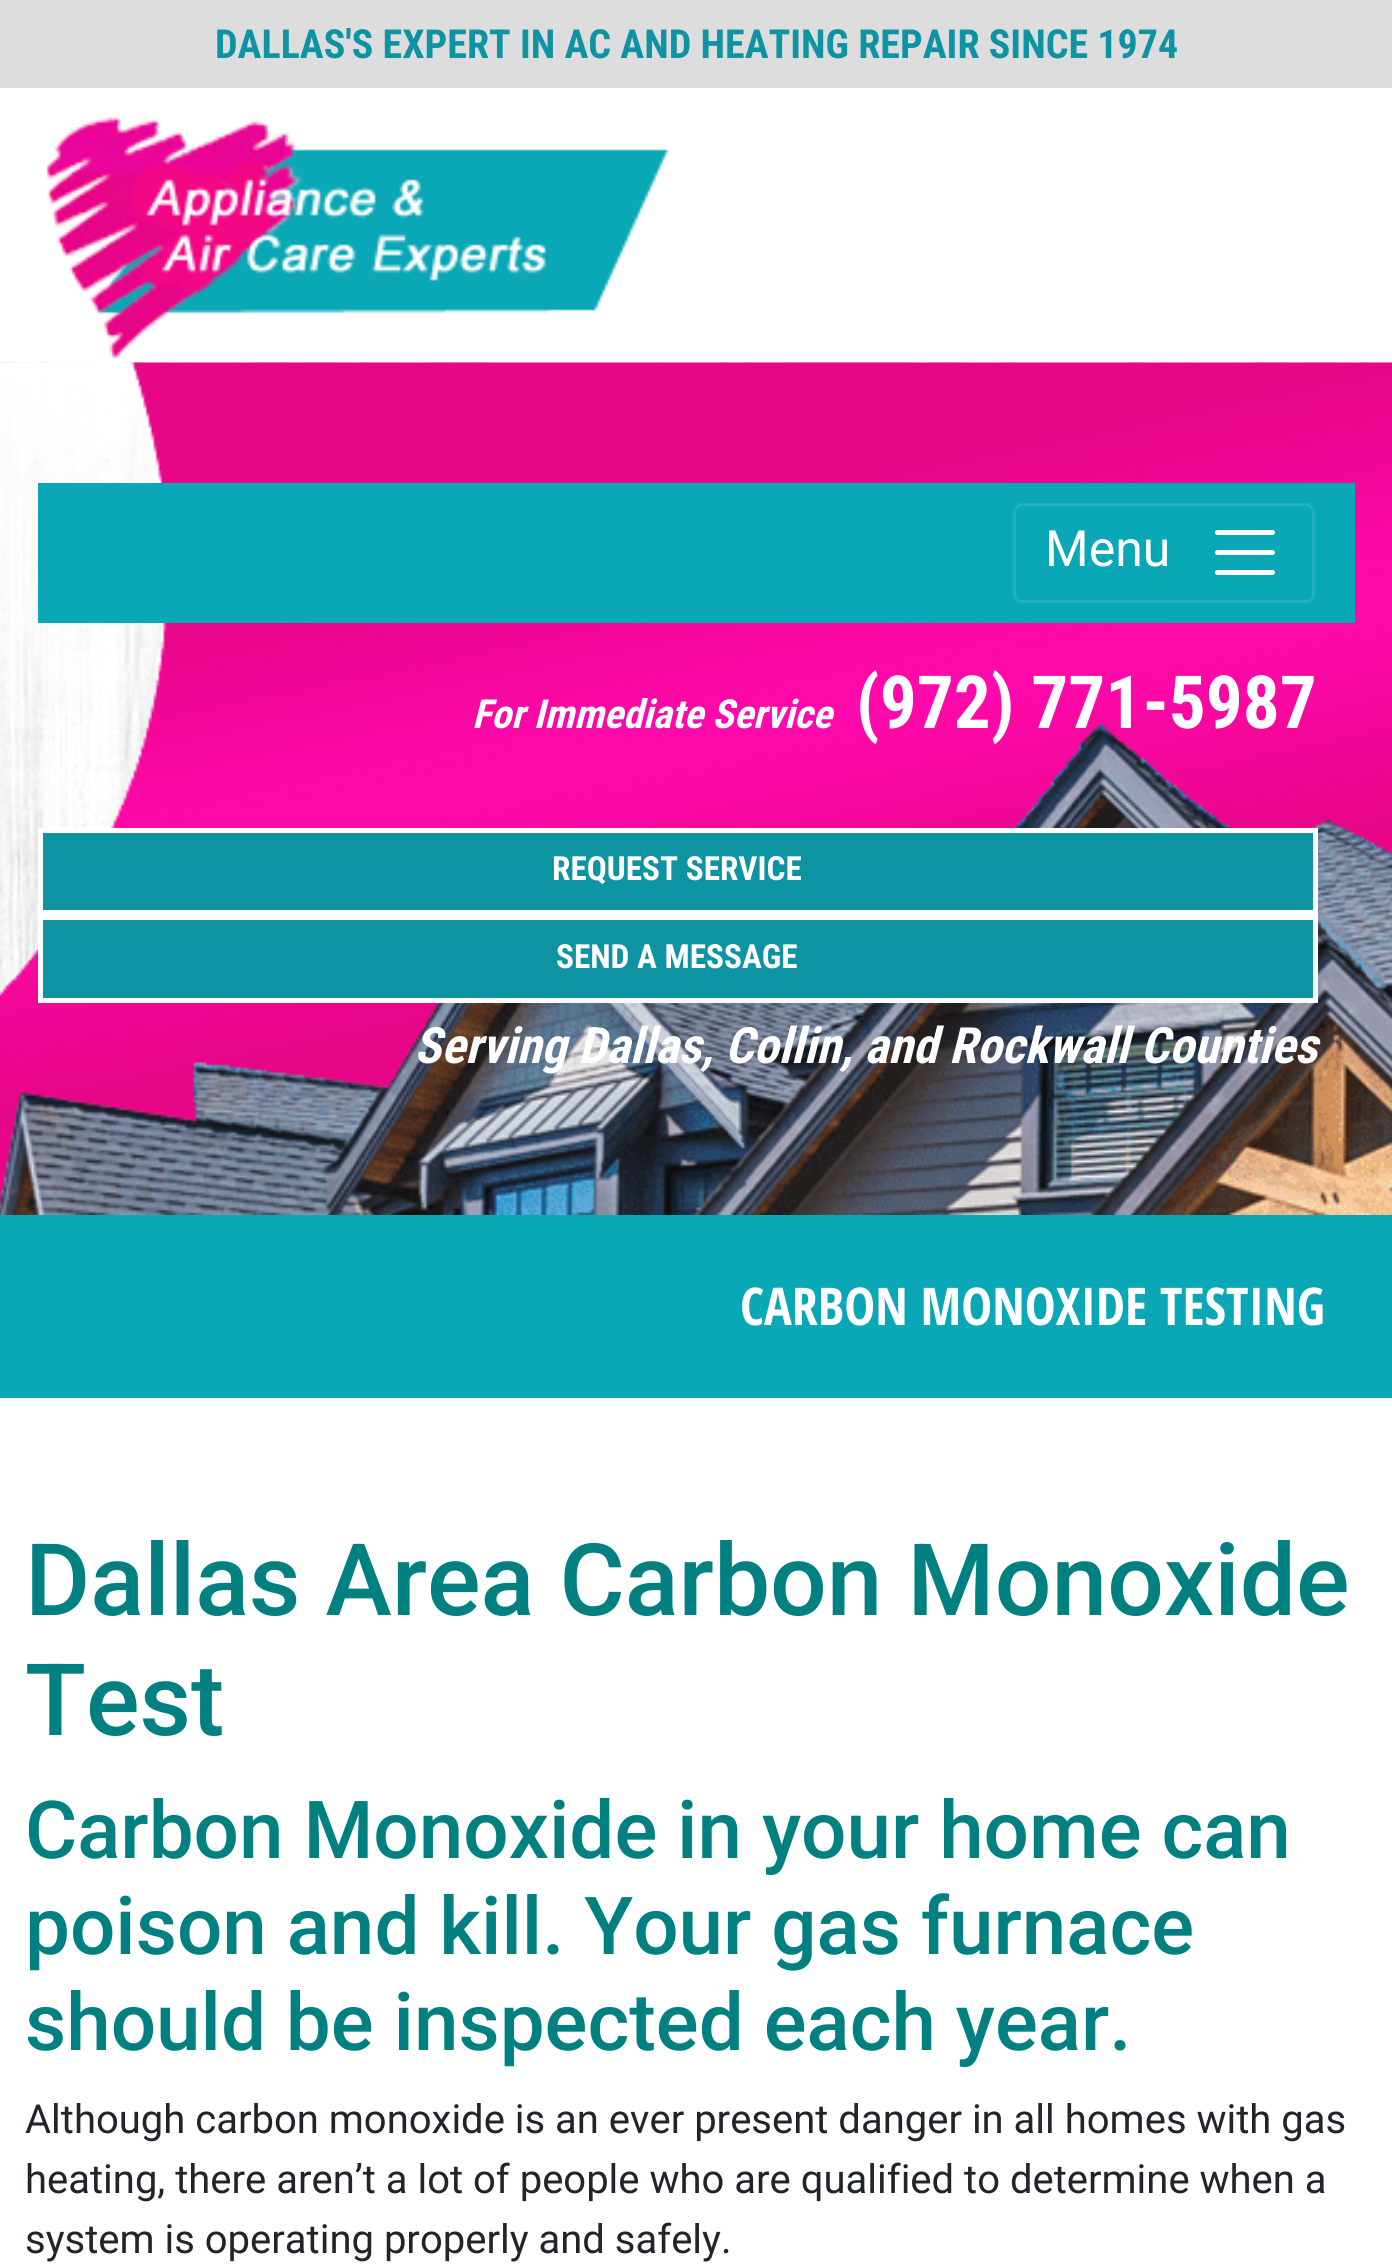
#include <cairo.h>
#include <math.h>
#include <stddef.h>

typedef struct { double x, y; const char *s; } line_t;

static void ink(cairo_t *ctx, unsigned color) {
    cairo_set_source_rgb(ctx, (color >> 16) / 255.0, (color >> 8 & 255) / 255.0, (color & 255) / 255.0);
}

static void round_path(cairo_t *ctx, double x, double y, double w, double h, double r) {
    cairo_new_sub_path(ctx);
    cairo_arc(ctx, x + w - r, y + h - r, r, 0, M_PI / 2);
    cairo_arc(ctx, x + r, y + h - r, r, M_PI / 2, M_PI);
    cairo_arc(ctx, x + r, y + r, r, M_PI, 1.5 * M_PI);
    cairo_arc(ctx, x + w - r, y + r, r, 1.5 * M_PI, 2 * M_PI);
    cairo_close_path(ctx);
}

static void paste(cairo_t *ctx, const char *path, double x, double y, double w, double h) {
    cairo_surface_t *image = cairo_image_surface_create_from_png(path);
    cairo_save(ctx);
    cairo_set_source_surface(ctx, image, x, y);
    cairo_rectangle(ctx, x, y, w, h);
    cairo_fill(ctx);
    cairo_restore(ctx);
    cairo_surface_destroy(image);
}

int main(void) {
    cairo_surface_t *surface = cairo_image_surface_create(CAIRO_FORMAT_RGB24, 1392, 2264);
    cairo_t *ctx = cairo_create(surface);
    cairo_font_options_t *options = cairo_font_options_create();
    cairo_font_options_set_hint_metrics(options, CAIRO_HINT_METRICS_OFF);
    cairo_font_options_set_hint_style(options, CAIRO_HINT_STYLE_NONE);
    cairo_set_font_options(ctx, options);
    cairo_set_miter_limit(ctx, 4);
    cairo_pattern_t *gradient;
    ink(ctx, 0xFFFFFF);
    cairo_paint(ctx);
    ink(ctx, 0xDDDDDD);
    cairo_rectangle(ctx, 0, 0, 1392, 88);
    cairo_fill(ctx);
    cairo_select_font_face(ctx, "Roboto Condensed", CAIRO_FONT_SLANT_NORMAL, CAIRO_FONT_WEIGHT_BOLD);
    cairo_set_font_size(ctx, 40);
    ink(ctx, 0x0E93A3);
    cairo_move_to(ctx, 215, 58);
    cairo_show_text(ctx, "DALLAS'S EXPERT IN AC AND HEATING REPAIR SINCE 1974");
    paste(ctx, "media/1.png", 46, 116, 623, 243);
    paste(ctx, "media/2.png", 0, 362, 1392, 634);
    gradient = cairo_pattern_create_linear(696, 362, 696, 1215);
    cairo_pattern_add_color_stop_rgba(gradient, 0, 1, 1, 1, 1);
    cairo_pattern_add_color_stop_rgba(gradient, 1, 1, 1, 1, 0);
    cairo_set_source(ctx, gradient);
    cairo_pattern_destroy(gradient);
    cairo_rectangle(ctx, 0, 363, 167, 633);
    cairo_fill(ctx);
    paste(ctx, "media/3.png", 0, 362, 1392, 853);
    ink(ctx, 0x0AA7B6);
    cairo_rectangle(ctx, 38, 483, 1317, 140);
    cairo_fill(ctx);
    round_path(ctx, 1014.5, 504.5, 299, 97, 8.5);
    ink(ctx, 0x23B0BD);
    cairo_set_line_width(ctx, 3);
    cairo_stroke(ctx);
    cairo_select_font_face(ctx, "Roboto", CAIRO_FONT_SLANT_NORMAL, CAIRO_FONT_WEIGHT_NORMAL);
    cairo_set_font_size(ctx, 50);
    ink(ctx, 0xFFFFFF);
    cairo_move_to(ctx, 1045, 566);
    cairo_show_text(ctx, "Menu");
    cairo_new_path(ctx);
    cairo_move_to(ctx, 1217.5, 532.5);
    cairo_line_to(ctx, 1272.5, 532.5);
    cairo_move_to(ctx, 1217.5, 552.5);
    cairo_line_to(ctx, 1272.5, 552.5);
    cairo_move_to(ctx, 1217.5, 572.5);
    cairo_line_to(ctx, 1272.5, 572.5);
    cairo_set_line_width(ctx, 5);
    cairo_set_line_cap(ctx, CAIRO_LINE_CAP_ROUND);
    cairo_stroke(ctx);
    cairo_select_font_face(ctx, "Roboto Condensed", CAIRO_FONT_SLANT_ITALIC, CAIRO_FONT_WEIGHT_BOLD);
    cairo_set_font_size(ctx, 40);
    cairo_move_to(ctx, 472, 728);
    cairo_show_text(ctx, "For Immediate Service");
    cairo_select_font_face(ctx, "Roboto Condensed", CAIRO_FONT_SLANT_NORMAL, CAIRO_FONT_WEIGHT_BOLD);
    cairo_set_font_size(ctx, 73.25);
    cairo_move_to(ctx, 856, 728);
    cairo_show_text(ctx, "(972) 771-5987");
    ink(ctx, 0x0E93A3);
    cairo_rectangle(ctx, 40.5, 830.5, 1275, 82);
    cairo_fill_preserve(ctx);
    ink(ctx, 0xFFFFFF);
    cairo_set_line_cap(ctx, CAIRO_LINE_CAP_BUTT);
    cairo_stroke(ctx);
    cairo_set_font_size(ctx, 33.25);
    cairo_move_to(ctx, 552, 880);
    cairo_show_text(ctx, "REQUEST SERVICE");
    ink(ctx, 0x0E93A3);
    cairo_rectangle(ctx, 40.5, 917.5, 1275, 83);
    cairo_fill_preserve(ctx);
    ink(ctx, 0xFFFFFF);
    cairo_stroke(ctx);
    cairo_move_to(ctx, 556, 968);
    cairo_show_text(ctx, "SEND A MESSAGE");
    cairo_select_font_face(ctx, "Roboto Condensed", CAIRO_FONT_SLANT_ITALIC, CAIRO_FONT_WEIGHT_BOLD);
    cairo_set_font_size(ctx, 50);
    cairo_move_to(ctx, 414, 1063);
    cairo_show_text(ctx, "Serving Dallas, Collin, and Rockwall Counties");
    ink(ctx, 0x0AA7B6);
    cairo_rectangle(ctx, 0, 1215, 1392, 183);
    cairo_fill(ctx);
    cairo_select_font_face(ctx, "Open Sans Condensed", CAIRO_FONT_SLANT_NORMAL, CAIRO_FONT_WEIGHT_BOLD);
    cairo_set_font_size(ctx, 52);
    ink(ctx, 0xFFFFFF);
    cairo_move_to(ctx, 740, 1325);
    cairo_show_text(ctx, "CARBON MONOXIDE TESTING");
    cairo_select_font_face(ctx, "Roboto Medium", CAIRO_FONT_SLANT_NORMAL, CAIRO_FONT_WEIGHT_NORMAL);
    cairo_set_font_size(ctx, 100);
    ink(ctx, 0x008080);
    cairo_move_to(ctx, 25, 1615);
    cairo_show_text(ctx, "Dallas Area Carbon Monoxide");
    cairo_move_to(ctx, 25, 1735);
    cairo_show_text(ctx, "Test");
    cairo_set_font_size(ctx, 80);
    {
        static const line_t items[] = {
            {25, 1858, "Carbon Monoxide in your home can"},
            {25, 1954, "poison and kill. Your gas furnace"},
            {25, 2050, "should be inspected each year."},
        };
        for (size_t i = 0; i < sizeof items / sizeof *items; i++) {
            cairo_move_to(ctx, items[i].x, items[i].y);
            cairo_show_text(ctx, items[i].s);
        }
    }
    cairo_select_font_face(ctx, "Roboto", CAIRO_FONT_SLANT_NORMAL, CAIRO_FONT_WEIGHT_NORMAL);
    cairo_set_font_size(ctx, 40);
    ink(ctx, 0x212529);
    {
        static const line_t items[] = {
            {25, 2133, "Although carbon monoxide is an ever present danger in all homes with gas"},
            {25, 2193, "heating, there aren’t a lot of people who are qualified to determine when a"},
            {25, 2253, "system is operating properly and safely."},
        };
        for (size_t i = 0; i < sizeof items / sizeof *items; i++) {
            cairo_move_to(ctx, items[i].x, items[i].y);
            cairo_show_text(ctx, items[i].s);
        }
    }
    cairo_surface_write_to_png(surface, "image.png");
    cairo_font_options_destroy(options);
    cairo_destroy(ctx);
    cairo_surface_destroy(surface);
    return 0;
}
